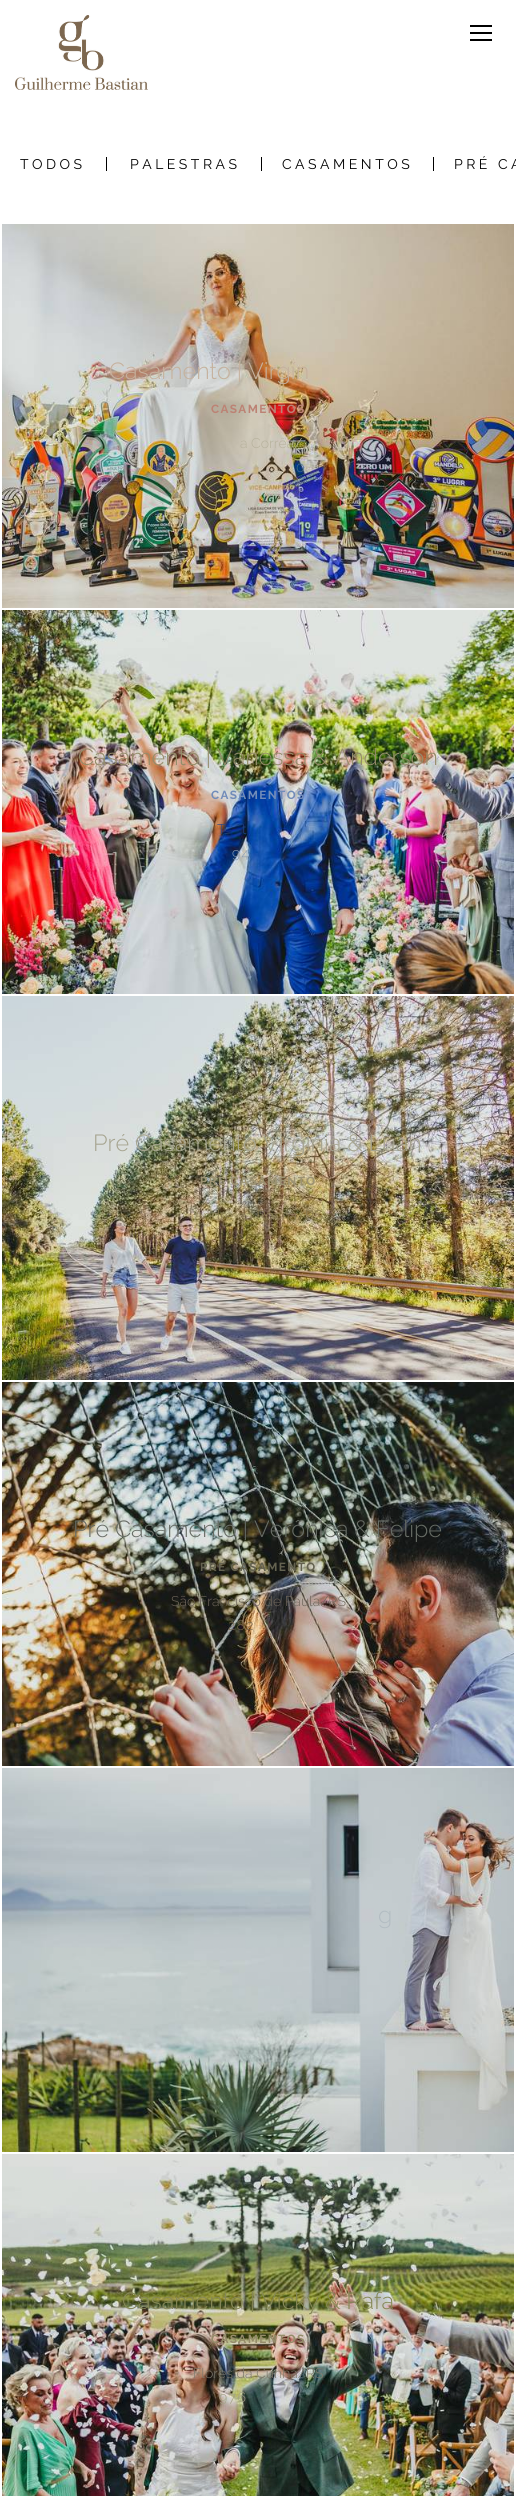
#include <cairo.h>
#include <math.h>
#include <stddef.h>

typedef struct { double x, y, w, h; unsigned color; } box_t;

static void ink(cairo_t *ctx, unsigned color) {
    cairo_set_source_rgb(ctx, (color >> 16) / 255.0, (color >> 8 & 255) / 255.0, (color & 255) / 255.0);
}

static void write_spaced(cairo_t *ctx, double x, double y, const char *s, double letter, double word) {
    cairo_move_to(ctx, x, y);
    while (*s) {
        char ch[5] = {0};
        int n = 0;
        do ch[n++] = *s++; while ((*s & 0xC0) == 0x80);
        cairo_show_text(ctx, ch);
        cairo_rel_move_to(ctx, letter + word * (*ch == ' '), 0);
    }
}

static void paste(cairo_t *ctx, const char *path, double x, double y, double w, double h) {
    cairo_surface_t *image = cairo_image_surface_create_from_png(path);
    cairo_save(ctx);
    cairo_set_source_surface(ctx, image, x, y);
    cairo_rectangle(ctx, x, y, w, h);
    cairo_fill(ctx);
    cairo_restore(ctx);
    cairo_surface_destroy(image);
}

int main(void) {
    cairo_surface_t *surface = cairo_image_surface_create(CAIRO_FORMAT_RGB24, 516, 2496);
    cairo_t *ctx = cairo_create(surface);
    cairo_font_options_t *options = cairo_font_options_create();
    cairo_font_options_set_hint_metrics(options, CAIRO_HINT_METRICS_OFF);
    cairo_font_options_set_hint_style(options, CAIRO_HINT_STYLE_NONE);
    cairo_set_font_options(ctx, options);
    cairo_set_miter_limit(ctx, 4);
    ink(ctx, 0xFFFFFF);
    cairo_paint(ctx);
    paste(ctx, "media/1.png", 15, 15, 133, 75);
    {
        static const box_t items[] = {
            {470, 25, 22, 2, 0x000000},
            {470, 32, 22, 2, 0x000000},
            {470, 39, 22, 2, 0x000000},
            {106, 157, 1, 14, 0x000000},
        };
        for (size_t i = 0; i < sizeof items / sizeof *items; i++) {
            ink(ctx, items[i].color);
            cairo_rectangle(ctx, items[i].x, items[i].y, items[i].w, items[i].h);
            cairo_fill(ctx);
        }
    }
    cairo_select_font_face(ctx, "Raleway", CAIRO_FONT_SLANT_NORMAL, CAIRO_FONT_WEIGHT_NORMAL);
    cairo_set_font_size(ctx, 14);
    ink(ctx, 0x030303);
    write_spaced(ctx, 20, 169, "TODOS", 3.5, 0);
    ink(ctx, 0x000000);
    cairo_rectangle(ctx, 261, 157, 1, 14);
    cairo_fill(ctx);
    ink(ctx, 0x030303);
    write_spaced(ctx, 130, 169, "PALESTRAS", 3.5, 0);
    ink(ctx, 0x000000);
    cairo_rectangle(ctx, 433, 157, 1, 14);
    cairo_fill(ctx);
    ink(ctx, 0x030303);
    write_spaced(ctx, 282, 169, "CASAMENTOS", 3.5, 0);
    write_spaced(ctx, 454, 169, "PRÉ CA", 3.5, 0);
    paste(ctx, "media/2.png", 2, 224, 512, 384);
    cairo_save(ctx);
    cairo_rectangle(ctx, 32, 358, 452, 26);
    cairo_clip(ctx);
    cairo_select_font_face(ctx, "Raleway Light", CAIRO_FONT_SLANT_NORMAL, CAIRO_FONT_WEIGHT_NORMAL);
    cairo_set_font_size(ctx, 23.3);
    ink(ctx, 0xC5B19D);
    cairo_move_to(ctx, 109, 379);
    cairo_show_text(ctx, "Casamento | Virgín");
    cairo_restore(ctx);
    cairo_select_font_face(ctx, "Raleway", CAIRO_FONT_SLANT_NORMAL, CAIRO_FONT_WEIGHT_BOLD);
    cairo_set_font_size(ctx, 11.75);
    ink(ctx, 0xBC8274);
    write_spaced(ctx, 211, 413, "CASAMENTOS", 1.4, 0);
    cairo_select_font_face(ctx, "Raleway Light", CAIRO_FONT_SLANT_NORMAL, CAIRO_FONT_WEIGHT_NORMAL);
    cairo_set_font_size(ctx, 14);
    ink(ctx, 0xB6B19C);
    cairo_move_to(ctx, 240, 448);
    cairo_show_text(ctx, "a Corrêa/");
    ink(ctx, 0x45698E);
    write_spaced(ctx, 296, 472, "0", 1.4, 0);
    paste(ctx, "media/3.png", 2, 610, 512, 384);
    cairo_set_font_size(ctx, 23.3);
    ink(ctx, 0x958C6A);
    cairo_move_to(ctx, 78, 765);
    cairo_show_text(ctx, "Casamento | Vanessa & Anderson");
    cairo_select_font_face(ctx, "Raleway", CAIRO_FONT_SLANT_NORMAL, CAIRO_FONT_WEIGHT_BOLD);
    cairo_set_font_size(ctx, 11.75);
    ink(ctx, 0x718CB9);
    write_spaced(ctx, 211, 799, "CASAMENTOS", 1.4, 0);
    cairo_select_font_face(ctx, "Raleway Light", CAIRO_FONT_SLANT_NORMAL, CAIRO_FONT_WEIGHT_NORMAL);
    cairo_set_font_size(ctx, 14);
    ink(ctx, 0x20488D);
    cairo_move_to(ctx, 217, 834);
    cairo_show_text(ctx, "T");
    cairo_move_to(ctx, 242, 834);
    cairo_show_text(ctx, "t");
    ink(ctx, 0x8A9BB0);
    write_spaced(ctx, 232, 858, "94", 1.4, 0);
    paste(ctx, "media/4.png", 2, 996, 512, 384);
    cairo_set_font_size(ctx, 23.3);
    ink(ctx, 0xA6A48F);
    cairo_move_to(ctx, 93, 1151);
    cairo_show_text(ctx, "Pré Casamento Virgínia & Luan");
    cairo_select_font_face(ctx, "Raleway", CAIRO_FONT_SLANT_NORMAL, CAIRO_FONT_WEIGHT_BOLD);
    cairo_set_font_size(ctx, 11.75);
    ink(ctx, 0x9C9272);
    write_spaced(ctx, 200, 1185, "PRÉ CASAMENTO", 1.4, 0);
    cairo_select_font_face(ctx, "Raleway Light", CAIRO_FONT_SLANT_NORMAL, CAIRO_FONT_WEIGHT_NORMAL);
    cairo_set_font_size(ctx, 14);
    ink(ctx, 0x8E8057);
    cairo_move_to(ctx, 194, 1220);
    cairo_show_text(ctx, "André da Rocha/RS");
    ink(ctx, 0x736536);
    write_spaced(ctx, 227, 1244, "266", 1.4, 0);
    paste(ctx, "media/5.png", 2, 1382, 512, 384);
    cairo_set_font_size(ctx, 23.3);
    ink(ctx, 0x676C65);
    cairo_move_to(ctx, 73, 1537);
    cairo_show_text(ctx, "Pré Casamento | Verônica & Felipe");
    cairo_select_font_face(ctx, "Raleway", CAIRO_FONT_SLANT_NORMAL, CAIRO_FONT_WEIGHT_BOLD);
    cairo_set_font_size(ctx, 11.75);
    ink(ctx, 0x646250);
    write_spaced(ctx, 200, 1571, "PRÉ CASAMENTO", 1.4, 0);
    cairo_select_font_face(ctx, "Raleway Light", CAIRO_FONT_SLANT_NORMAL, CAIRO_FONT_WEIGHT_NORMAL);
    cairo_set_font_size(ctx, 14);
    ink(ctx, 0x6D6459);
    cairo_move_to(ctx, 171, 1606);
    cairo_show_text(ctx, "São Francisco de Paula/RS");
    ink(ctx, 0x71624A);
    write_spaced(ctx, 228, 1630, "282", 1.4, 0);
    paste(ctx, "media/6.png", 2, 1768, 512, 384);
    cairo_set_font_size(ctx, 23.3);
    ink(ctx, 0xB2BCC2);
    cairo_move_to(ctx, 378, 1923);
    cairo_show_text(ctx, "g");
    paste(ctx, "media/7.png", 2, 2154, 512, 342);
    ink(ctx, 0x868857);
    cairo_move_to(ctx, 122, 2309);
    cairo_show_text(ctx, "Casamento | Vicky & Rafa");
    cairo_select_font_face(ctx, "Raleway", CAIRO_FONT_SLANT_NORMAL, CAIRO_FONT_WEIGHT_BOLD);
    cairo_set_font_size(ctx, 11.75);
    ink(ctx, 0x958C6A);
    write_spaced(ctx, 211, 2343, "CASAMENTOS", 1.4, 0);
    cairo_select_font_face(ctx, "Raleway Light", CAIRO_FONT_SLANT_NORMAL, CAIRO_FONT_WEIGHT_NORMAL);
    cairo_set_font_size(ctx, 14);
    ink(ctx, 0x7E786B);
    cairo_move_to(ctx, 193, 2378);
    cairo_show_text(ctx, "Flores da Cunha/RS");
    ink(ctx, 0xA4A287);
    write_spaced(ctx, 219, 2402, "976", 1.4, 0);
    cairo_surface_write_to_png(surface, "image.png");
    cairo_font_options_destroy(options);
    cairo_destroy(ctx);
    cairo_surface_destroy(surface);
    return 0;
}
